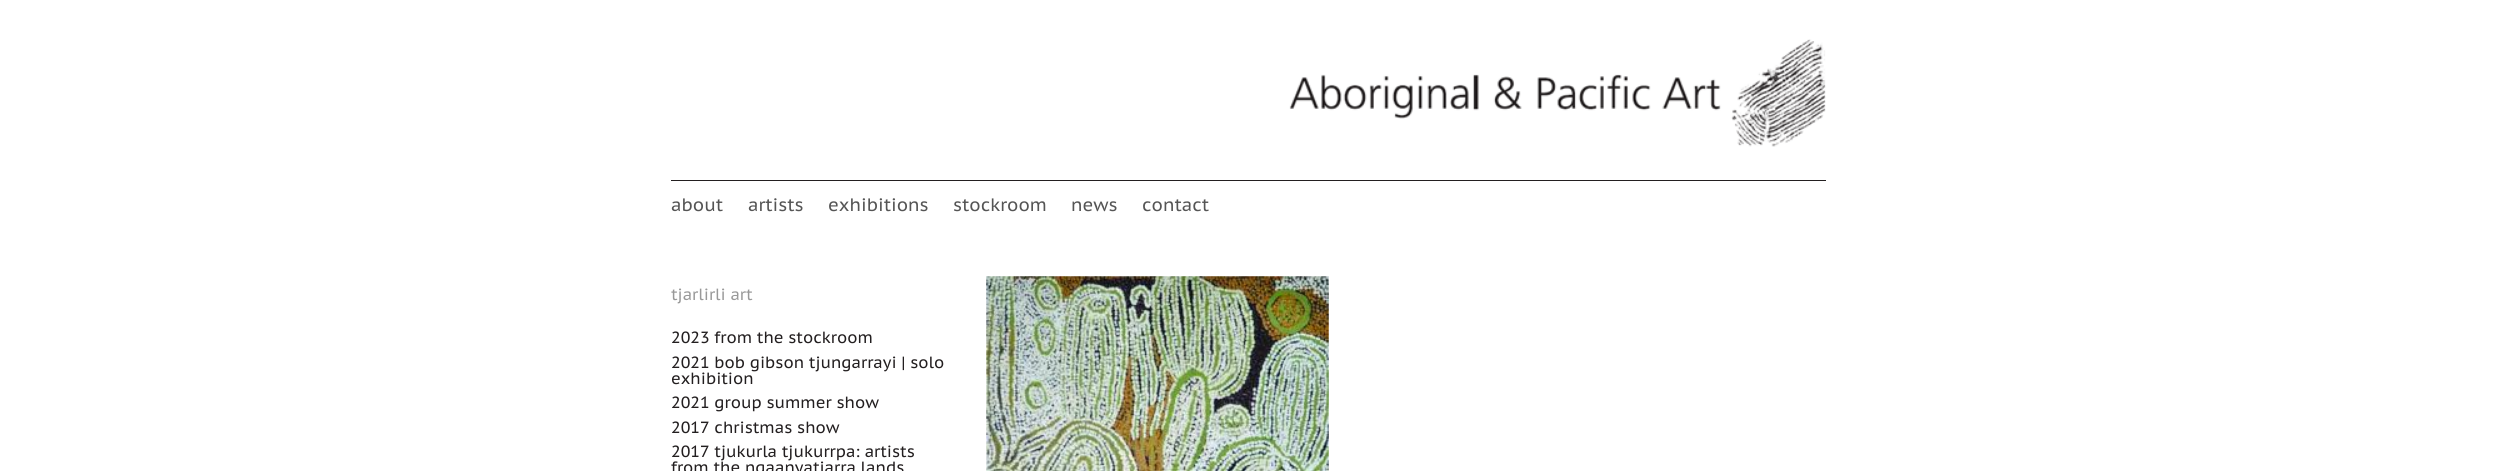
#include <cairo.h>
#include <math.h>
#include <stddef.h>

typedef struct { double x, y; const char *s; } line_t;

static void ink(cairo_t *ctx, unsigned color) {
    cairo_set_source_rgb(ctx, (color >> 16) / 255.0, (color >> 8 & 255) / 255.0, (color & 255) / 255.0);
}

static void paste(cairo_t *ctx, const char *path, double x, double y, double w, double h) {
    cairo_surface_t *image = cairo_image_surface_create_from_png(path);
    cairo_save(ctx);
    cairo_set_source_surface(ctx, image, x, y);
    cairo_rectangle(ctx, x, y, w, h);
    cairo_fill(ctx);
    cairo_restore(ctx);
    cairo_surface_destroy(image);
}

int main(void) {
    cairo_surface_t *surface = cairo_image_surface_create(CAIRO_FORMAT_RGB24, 2497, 471);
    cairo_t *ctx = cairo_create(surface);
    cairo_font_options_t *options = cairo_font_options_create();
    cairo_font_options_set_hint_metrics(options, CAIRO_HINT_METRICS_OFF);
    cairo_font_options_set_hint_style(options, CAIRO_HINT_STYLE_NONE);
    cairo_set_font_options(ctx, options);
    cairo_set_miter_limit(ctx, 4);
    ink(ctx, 0xFFFFFF);
    cairo_paint(ctx);
    paste(ctx, "media/1.png", 1289, 39, 537, 108);
    ink(ctx, 0x231F20);
    cairo_rectangle(ctx, 671, 180, 1155, 1);
    cairo_fill(ctx);
    cairo_select_font_face(ctx, "PT Sans Caption", CAIRO_FONT_SLANT_NORMAL, CAIRO_FONT_WEIGHT_NORMAL);
    cairo_set_font_size(ctx, 18);
    ink(ctx, 0x555555);
    {
        static const line_t items[] = {
            {671, 211, "about"},
            {748, 211, "artists"},
            {828, 211, "exhibitions"},
            {953, 211, "stockroom"},
            {1071, 211, "news"},
            {1142, 211, "contact"},
        };
        for (size_t i = 0; i < sizeof items / sizeof *items; i++) {
            cairo_move_to(ctx, items[i].x, items[i].y);
            cairo_show_text(ctx, items[i].s);
        }
    }
    cairo_set_font_size(ctx, 16.25);
    ink(ctx, 0x999999);
    cairo_move_to(ctx, 671, 300);
    cairo_show_text(ctx, "tjarlirli art");
    ink(ctx, 0x231F20);
    {
        static const line_t items[] = {
            {671, 343, "2023 from the stockroom"},
            {671, 368, "2021 bob gibson tjungarrayi | solo"},
            {671, 384, "exhibition"},
            {671, 408, "2021 group summer show"},
            {671, 433, "2017 christmas show"},
            {671, 457, "2017 tjukurla tjukurrpa: artists"},
            {671, 473, "from the ngaanyatjarra lands"},
        };
        for (size_t i = 0; i < sizeof items / sizeof *items; i++) {
            cairo_move_to(ctx, items[i].x, items[i].y);
            cairo_show_text(ctx, items[i].s);
        }
    }
    paste(ctx, "media/2.png", 986, 276, 343, 195);
    cairo_surface_write_to_png(surface, "image.png");
    cairo_font_options_destroy(options);
    cairo_destroy(ctx);
    cairo_surface_destroy(surface);
    return 0;
}
